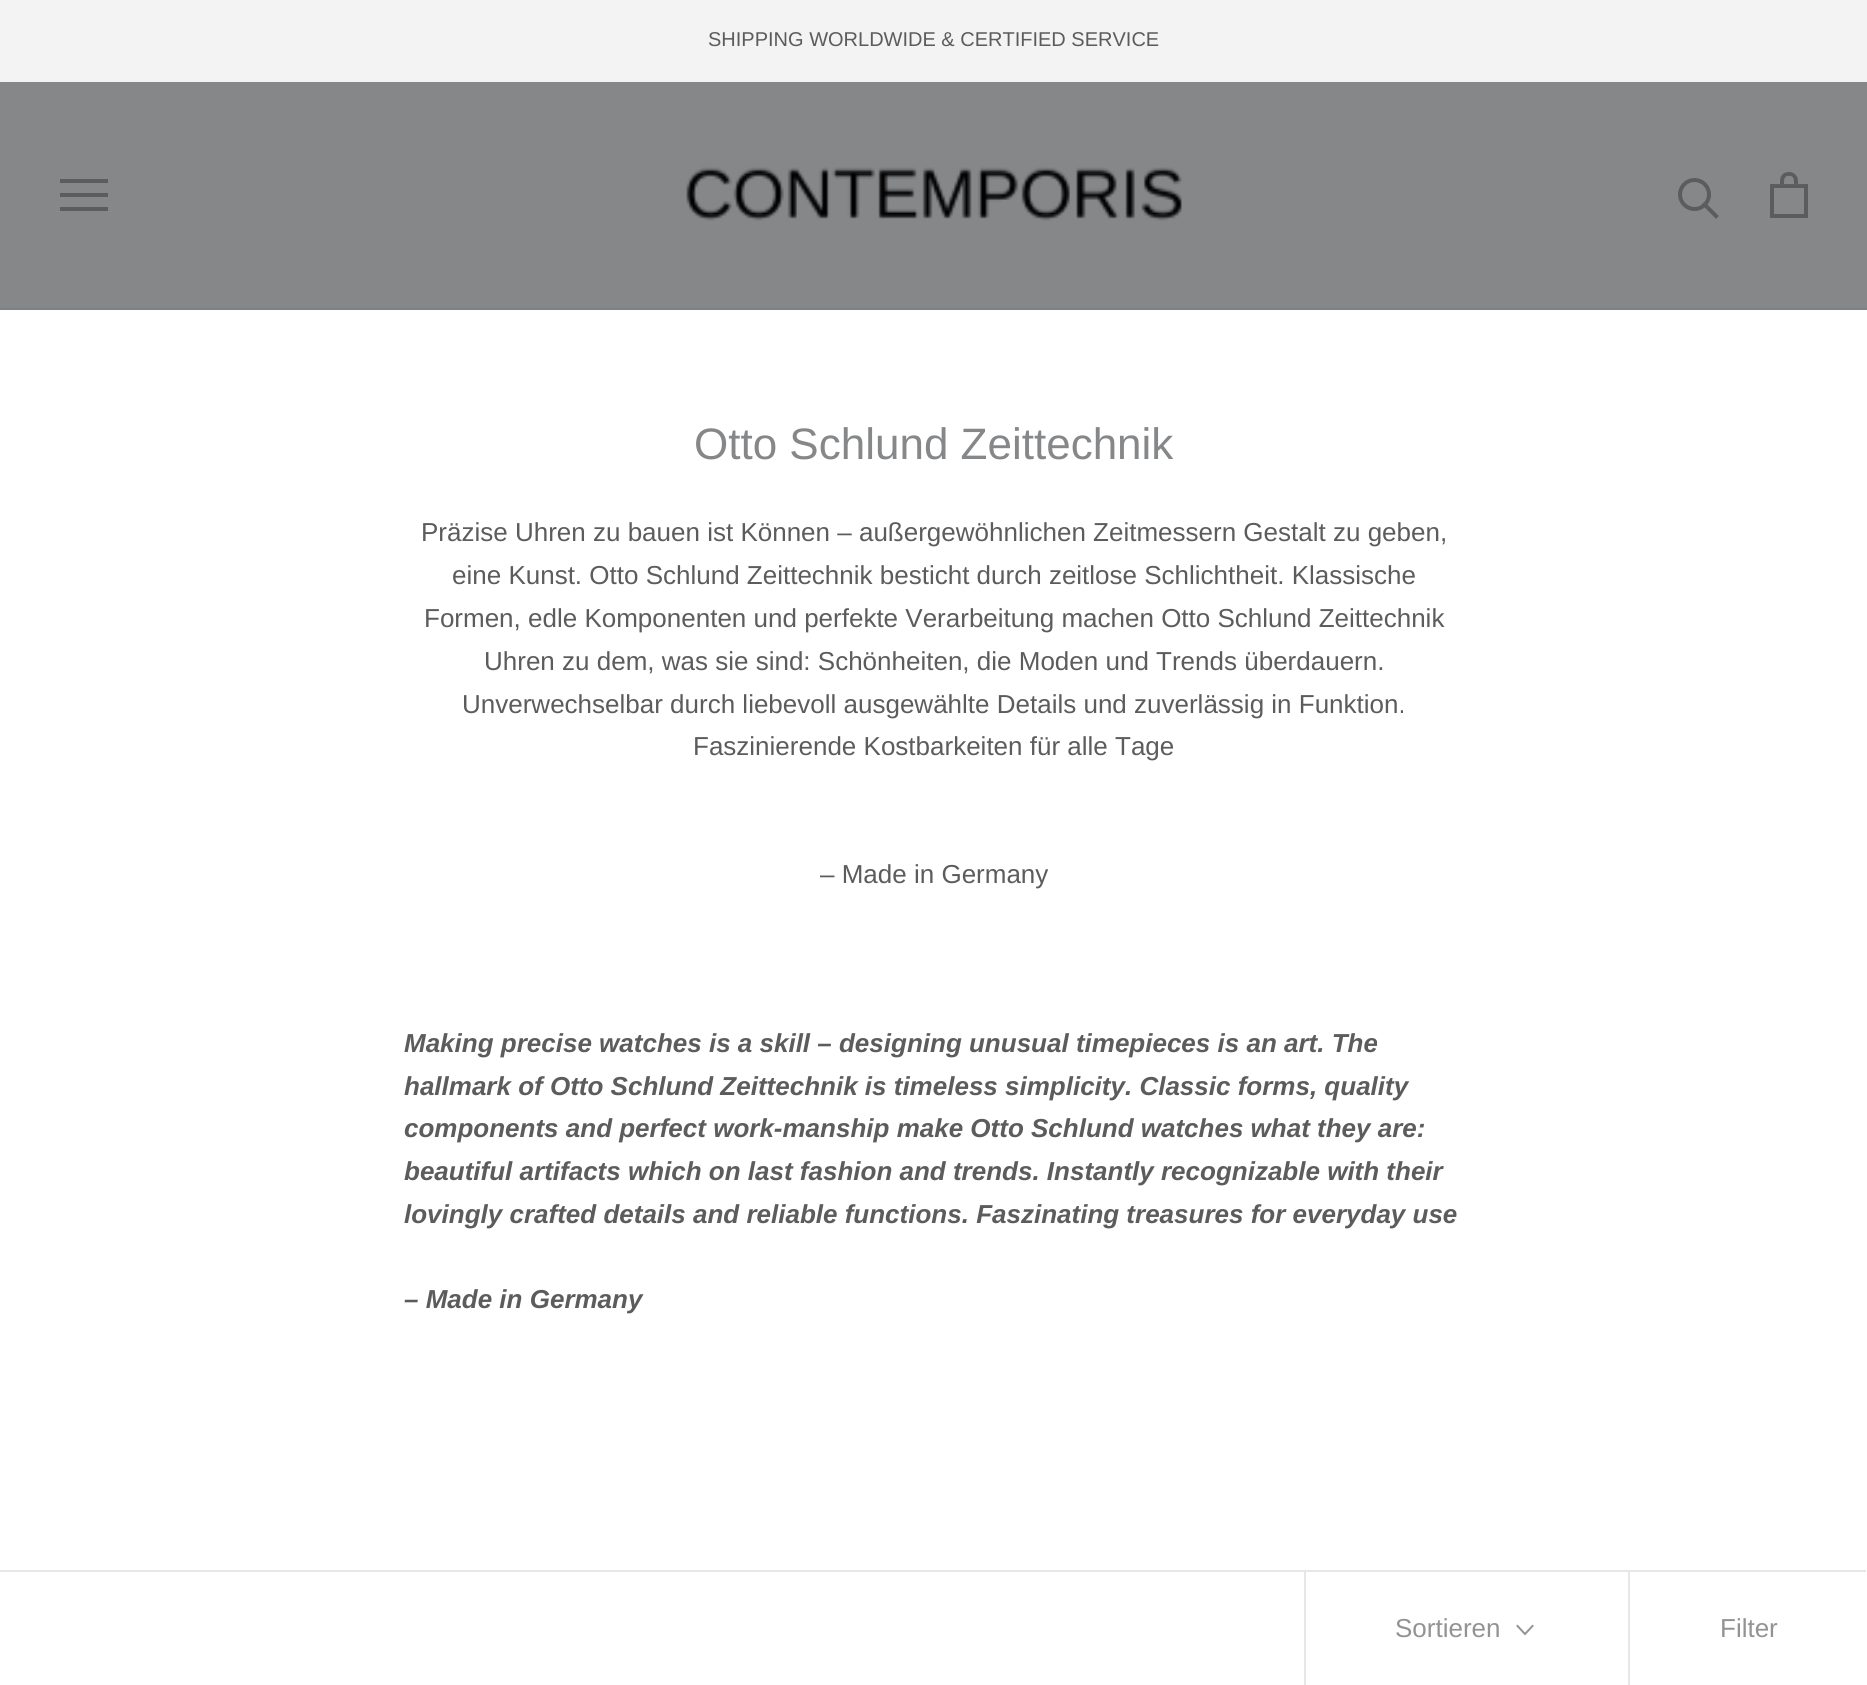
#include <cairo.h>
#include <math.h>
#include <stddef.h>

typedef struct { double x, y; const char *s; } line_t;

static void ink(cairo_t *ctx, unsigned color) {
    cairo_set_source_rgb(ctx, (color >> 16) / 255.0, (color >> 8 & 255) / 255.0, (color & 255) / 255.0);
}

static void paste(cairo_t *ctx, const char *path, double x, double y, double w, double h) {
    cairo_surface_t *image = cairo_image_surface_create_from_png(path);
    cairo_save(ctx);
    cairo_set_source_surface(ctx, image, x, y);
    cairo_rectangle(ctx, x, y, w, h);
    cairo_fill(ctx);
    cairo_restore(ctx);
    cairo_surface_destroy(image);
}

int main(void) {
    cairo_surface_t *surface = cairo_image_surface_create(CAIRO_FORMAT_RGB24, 1867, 1685);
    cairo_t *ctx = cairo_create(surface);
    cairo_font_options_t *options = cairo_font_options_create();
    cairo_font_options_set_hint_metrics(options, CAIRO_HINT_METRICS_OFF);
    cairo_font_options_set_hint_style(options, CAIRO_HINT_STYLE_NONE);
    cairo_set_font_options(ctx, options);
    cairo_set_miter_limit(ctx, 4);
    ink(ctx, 0xFFFFFF);
    cairo_paint(ctx);
    ink(ctx, 0xF3F3F3);
    cairo_rectangle(ctx, 0, 0, 1867, 82);
    cairo_fill(ctx);
    cairo_select_font_face(ctx, "Liberation Sans", CAIRO_FONT_SLANT_NORMAL, CAIRO_FONT_WEIGHT_NORMAL);
    cairo_set_font_size(ctx, 20);
    ink(ctx, 0x5C5C5C);
    cairo_move_to(ctx, 708, 46);
    cairo_show_text(ctx, "SHIPPING WORLDWIDE & CERTIFIED SERVICE");
    ink(ctx, 0x858789);
    cairo_rectangle(ctx, 0, 82, 1867, 226);
    cairo_fill(ctx);
    ink(ctx, 0x7F8182);
    cairo_rectangle(ctx, 0, 308, 1867, 2);
    cairo_fill(ctx);
    ink(ctx, 0x5C5C5C);
    cairo_new_path(ctx);
    cairo_move_to(ctx, 60, 211);
    cairo_line_to(ctx, 60, 207);
    cairo_line_to(ctx, 108, 207);
    cairo_line_to(ctx, 108, 211);
    cairo_close_path(ctx);
    cairo_move_to(ctx, 60, 193);
    cairo_line_to(ctx, 108, 193);
    cairo_line_to(ctx, 108, 197);
    cairo_line_to(ctx, 60, 197);
    cairo_close_path(ctx);
    cairo_move_to(ctx, 60, 179);
    cairo_line_to(ctx, 108, 179);
    cairo_line_to(ctx, 108, 183);
    cairo_line_to(ctx, 60, 183);
    cairo_close_path(ctx);
    cairo_fill(ctx);
    paste(ctx, "media/1.png", 686, 167, 496, 54);
    cairo_new_path(ctx);
    cairo_move_to(ctx, 1716, 216);
    cairo_line_to(ctx, 1704.5, 204.5);
    cairo_set_line_width(ctx, 4);
    cairo_set_line_cap(ctx, CAIRO_LINE_CAP_SQUARE);
    cairo_stroke(ctx);
    cairo_arc(ctx, 1694.5, 194.5, 14.5, 0, 2 * M_PI);
    cairo_set_line_cap(ctx, CAIRO_LINE_CAP_BUTT);
    cairo_stroke(ctx);
    paste(ctx, "media/2.png", 1770, 172, 38, 46);
    cairo_set_font_size(ctx, 44);
    ink(ctx, 0x858789);
    cairo_move_to(ctx, 694, 459);
    cairo_show_text(ctx, "Otto Schlund Zeittechnik");
    cairo_set_font_size(ctx, 26);
    ink(ctx, 0x5C5C5C);
    {
        static const line_t items[] = {
            {421, 541, "Präzise Uhren zu bauen ist Können – außergewöhnlichen Zeitmessern Gestalt zu geben,"},
            {452, 584, "eine Kunst. Otto Schlund Zeittechnik besticht durch zeitlose Schlichtheit. Klassische"},
            {424, 627, "Formen, edle Komponenten und perfekte Verarbeitung machen Otto Schlund Zeittechnik"},
            {484, 670, "Uhren zu dem, was sie sind: Schönheiten, die Moden und Trends überdauern."},
            {462, 713, "Unverwechselbar durch liebevoll ausgewählte Details und zuverlässig in Funktion."},
            {693, 755, "Faszinierende Kostbarkeiten für alle Tage"},
            {820, 883, "– Made in Germany"},
        };
        for (size_t i = 0; i < sizeof items / sizeof *items; i++) {
            cairo_move_to(ctx, items[i].x, items[i].y);
            cairo_show_text(ctx, items[i].s);
        }
    }
    cairo_select_font_face(ctx, "Liberation Sans", CAIRO_FONT_SLANT_ITALIC, CAIRO_FONT_WEIGHT_BOLD);
    {
        static const line_t items[] = {
            {404, 1052, "Making precise watches is a skill – designing unusual timepieces is an art. The"},
            {404, 1095, "hallmark of Otto Schlund Zeittechnik is timeless simplicity. Classic forms, quality"},
            {404, 1137, "components and perfect work-manship make Otto Schlund watches what they are:"},
            {404, 1180, "beautiful artifacts which on last fashion and trends. Instantly recognizable with their"},
            {404, 1223, "lovingly crafted details and reliable functions. Faszinating treasures for everyday use"},
            {404, 1308, "– Made in Germany"},
        };
        for (size_t i = 0; i < sizeof items / sizeof *items; i++) {
            cairo_move_to(ctx, items[i].x, items[i].y);
            cairo_show_text(ctx, items[i].s);
        }
    }
    ink(ctx, 0xE7E7E7);
    cairo_new_path(ctx);
    cairo_move_to(ctx, -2, 1570);
    cairo_line_to(ctx, -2, 1684);
    cairo_line_to(ctx, 0, 1684);
    cairo_line_to(ctx, 0, 1572);
    cairo_line_to(ctx, 1866, 1572);
    cairo_line_to(ctx, 1866, 1570);
    cairo_close_path(ctx);
    cairo_fill(ctx);
    cairo_rectangle(ctx, 1304, 1572, 2, 113);
    cairo_fill(ctx);
    cairo_select_font_face(ctx, "Liberation Sans", CAIRO_FONT_SLANT_NORMAL, CAIRO_FONT_WEIGHT_NORMAL);
    ink(ctx, 0x939393);
    cairo_move_to(ctx, 1395, 1637);
    cairo_show_text(ctx, "Sortieren");
    cairo_new_path(ctx);
    cairo_move_to(ctx, 1532.5, 1626);
    cairo_line_to(ctx, 1525, 1634);
    cairo_line_to(ctx, 1517.5, 1626);
    cairo_set_line_width(ctx, 2);
    cairo_set_line_cap(ctx, CAIRO_LINE_CAP_SQUARE);
    cairo_stroke(ctx);
    ink(ctx, 0xE7E7E7);
    cairo_rectangle(ctx, 1628, 1572, 2, 113);
    cairo_fill(ctx);
    ink(ctx, 0x939393);
    cairo_move_to(ctx, 1720, 1637);
    cairo_show_text(ctx, "Filter");
    cairo_surface_write_to_png(surface, "image.png");
    cairo_font_options_destroy(options);
    cairo_destroy(ctx);
    cairo_surface_destroy(surface);
    return 0;
}
